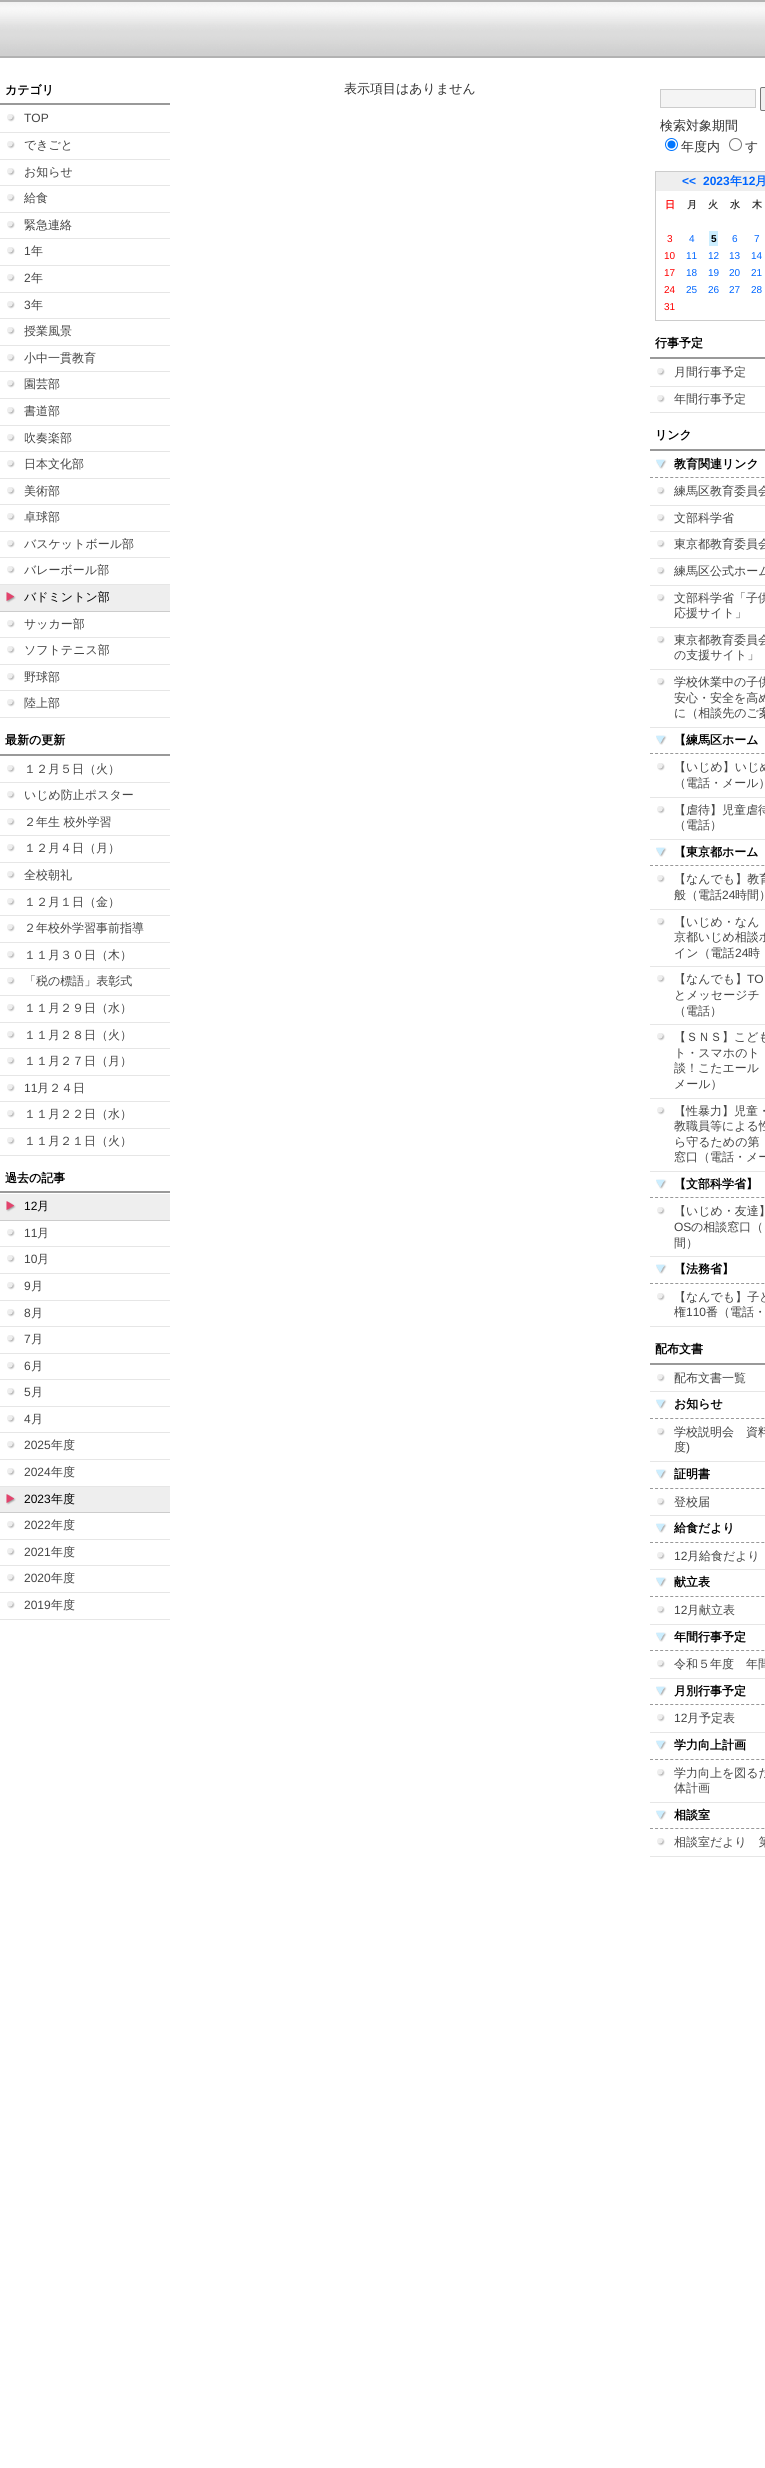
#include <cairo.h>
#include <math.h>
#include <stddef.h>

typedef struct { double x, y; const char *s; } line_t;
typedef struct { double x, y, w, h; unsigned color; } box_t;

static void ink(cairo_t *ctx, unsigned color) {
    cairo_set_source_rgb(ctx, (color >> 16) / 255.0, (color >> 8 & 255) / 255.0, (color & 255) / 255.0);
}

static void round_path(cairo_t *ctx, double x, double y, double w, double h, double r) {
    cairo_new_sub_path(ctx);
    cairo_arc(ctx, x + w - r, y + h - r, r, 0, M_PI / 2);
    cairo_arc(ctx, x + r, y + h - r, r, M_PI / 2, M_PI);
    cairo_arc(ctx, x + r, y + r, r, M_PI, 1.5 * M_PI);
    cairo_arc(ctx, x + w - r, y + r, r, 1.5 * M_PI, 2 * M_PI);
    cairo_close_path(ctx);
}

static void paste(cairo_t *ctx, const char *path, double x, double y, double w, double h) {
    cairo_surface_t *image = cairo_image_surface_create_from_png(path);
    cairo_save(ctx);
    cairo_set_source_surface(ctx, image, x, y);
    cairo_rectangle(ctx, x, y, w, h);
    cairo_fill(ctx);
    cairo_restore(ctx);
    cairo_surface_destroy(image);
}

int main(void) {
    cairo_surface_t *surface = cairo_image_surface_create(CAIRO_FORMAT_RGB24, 765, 2468);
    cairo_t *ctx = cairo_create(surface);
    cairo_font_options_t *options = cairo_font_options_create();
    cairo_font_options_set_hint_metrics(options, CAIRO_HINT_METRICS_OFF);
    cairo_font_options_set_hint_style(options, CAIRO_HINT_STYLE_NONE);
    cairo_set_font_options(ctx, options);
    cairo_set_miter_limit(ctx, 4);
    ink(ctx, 0xFFFFFF);
    cairo_paint(ctx);
    paste(ctx, "media/1.png", 0, 2, 765, 54);
    {
        static const box_t items[] = {
            {0, 0, 765, 2, 0xB2B2B2},
            {0, 56, 765, 2, 0xB2B2B2},
            {0, 103, 170, 2, 0x999999},
        };
        for (size_t i = 0; i < sizeof items / sizeof *items; i++) {
            ink(ctx, items[i].color);
            cairo_rectangle(ctx, items[i].x, items[i].y, items[i].w, items[i].h);
            cairo_fill(ctx);
        }
    }
    cairo_select_font_face(ctx, "WenQuanYi Zen Hei", CAIRO_FONT_SLANT_NORMAL, CAIRO_FONT_WEIGHT_BOLD);
    cairo_set_font_size(ctx, 12);
    ink(ctx, 0x000000);
    cairo_move_to(ctx, 5, 94);
    cairo_show_text(ctx, "カテゴリ");
    paste(ctx, "media/2.png", 7, 114, 8, 8);
    ink(ctx, 0xE6E6E6);
    cairo_rectangle(ctx, 0, 132, 170, 1);
    cairo_fill(ctx);
    cairo_select_font_face(ctx, "Liberation Sans", CAIRO_FONT_SLANT_NORMAL, CAIRO_FONT_WEIGHT_NORMAL);
    ink(ctx, 0x444444);
    cairo_move_to(ctx, 24, 122);
    cairo_show_text(ctx, "TOP");
    paste(ctx, "media/2.png", 7, 141, 8, 8);
    ink(ctx, 0xE6E6E6);
    cairo_rectangle(ctx, 0, 159, 170, 1);
    cairo_fill(ctx);
    cairo_select_font_face(ctx, "WenQuanYi Zen Hei Medium", CAIRO_FONT_SLANT_NORMAL, CAIRO_FONT_WEIGHT_NORMAL);
    ink(ctx, 0x444444);
    cairo_move_to(ctx, 24, 149);
    cairo_show_text(ctx, "できごと");
    paste(ctx, "media/2.png", 7, 168, 8, 8);
    ink(ctx, 0xE6E6E6);
    cairo_rectangle(ctx, 0, 185, 170, 1);
    cairo_fill(ctx);
    ink(ctx, 0x444444);
    cairo_move_to(ctx, 24, 176);
    cairo_show_text(ctx, "お知らせ");
    paste(ctx, "media/2.png", 7, 194, 8, 8);
    ink(ctx, 0xE6E6E6);
    cairo_rectangle(ctx, 0, 212, 170, 1);
    cairo_fill(ctx);
    ink(ctx, 0x444444);
    cairo_move_to(ctx, 24, 202);
    cairo_show_text(ctx, "給食");
    paste(ctx, "media/2.png", 7, 221, 8, 8);
    ink(ctx, 0xE6E6E6);
    cairo_rectangle(ctx, 0, 238, 170, 1);
    cairo_fill(ctx);
    ink(ctx, 0x444444);
    cairo_move_to(ctx, 24, 229);
    cairo_show_text(ctx, "緊急連絡");
    paste(ctx, "media/2.png", 7, 247, 8, 8);
    ink(ctx, 0xE6E6E6);
    cairo_rectangle(ctx, 0, 265, 170, 1);
    cairo_fill(ctx);
    cairo_select_font_face(ctx, "Liberation Sans", CAIRO_FONT_SLANT_NORMAL, CAIRO_FONT_WEIGHT_NORMAL);
    ink(ctx, 0x444444);
    cairo_move_to(ctx, 24, 255);
    cairo_show_text(ctx, "1");
    cairo_select_font_face(ctx, "WenQuanYi Zen Hei Medium", CAIRO_FONT_SLANT_NORMAL, CAIRO_FONT_WEIGHT_NORMAL);
    cairo_move_to(ctx, 31, 255);
    cairo_show_text(ctx, "年");
    paste(ctx, "media/2.png", 7, 274, 8, 8);
    ink(ctx, 0xE6E6E6);
    cairo_rectangle(ctx, 0, 292, 170, 1);
    cairo_fill(ctx);
    cairo_select_font_face(ctx, "Liberation Sans", CAIRO_FONT_SLANT_NORMAL, CAIRO_FONT_WEIGHT_NORMAL);
    ink(ctx, 0x444444);
    cairo_move_to(ctx, 24, 282);
    cairo_show_text(ctx, "2");
    cairo_select_font_face(ctx, "WenQuanYi Zen Hei Medium", CAIRO_FONT_SLANT_NORMAL, CAIRO_FONT_WEIGHT_NORMAL);
    cairo_move_to(ctx, 31, 282);
    cairo_show_text(ctx, "年");
    paste(ctx, "media/2.png", 7, 301, 8, 8);
    ink(ctx, 0xE6E6E6);
    cairo_rectangle(ctx, 0, 318, 170, 1);
    cairo_fill(ctx);
    cairo_select_font_face(ctx, "Liberation Sans", CAIRO_FONT_SLANT_NORMAL, CAIRO_FONT_WEIGHT_NORMAL);
    ink(ctx, 0x444444);
    cairo_move_to(ctx, 24, 309);
    cairo_show_text(ctx, "3");
    cairo_select_font_face(ctx, "WenQuanYi Zen Hei Medium", CAIRO_FONT_SLANT_NORMAL, CAIRO_FONT_WEIGHT_NORMAL);
    cairo_move_to(ctx, 31, 309);
    cairo_show_text(ctx, "年");
    paste(ctx, "media/2.png", 7, 327, 8, 8);
    ink(ctx, 0xE6E6E6);
    cairo_rectangle(ctx, 0, 345, 170, 1);
    cairo_fill(ctx);
    ink(ctx, 0x444444);
    cairo_move_to(ctx, 24, 335);
    cairo_show_text(ctx, "授業風景");
    paste(ctx, "media/2.png", 7, 354, 8, 8);
    ink(ctx, 0xE6E6E6);
    cairo_rectangle(ctx, 0, 371, 170, 1);
    cairo_fill(ctx);
    ink(ctx, 0x444444);
    cairo_move_to(ctx, 24, 362);
    cairo_show_text(ctx, "小中一貫教育");
    paste(ctx, "media/2.png", 7, 380, 8, 8);
    ink(ctx, 0xE6E6E6);
    cairo_rectangle(ctx, 0, 398, 170, 1);
    cairo_fill(ctx);
    ink(ctx, 0x444444);
    cairo_move_to(ctx, 24, 388);
    cairo_show_text(ctx, "園芸部");
    paste(ctx, "media/2.png", 7, 407, 8, 8);
    ink(ctx, 0xE6E6E6);
    cairo_rectangle(ctx, 0, 425, 170, 1);
    cairo_fill(ctx);
    ink(ctx, 0x444444);
    cairo_move_to(ctx, 24, 415);
    cairo_show_text(ctx, "書道部");
    paste(ctx, "media/2.png", 7, 434, 8, 8);
    ink(ctx, 0xE6E6E6);
    cairo_rectangle(ctx, 0, 451, 170, 1);
    cairo_fill(ctx);
    ink(ctx, 0x444444);
    cairo_move_to(ctx, 24, 442);
    cairo_show_text(ctx, "吹奏楽部");
    paste(ctx, "media/2.png", 7, 460, 8, 8);
    ink(ctx, 0xE6E6E6);
    cairo_rectangle(ctx, 0, 478, 170, 1);
    cairo_fill(ctx);
    ink(ctx, 0x444444);
    cairo_move_to(ctx, 24, 468);
    cairo_show_text(ctx, "日本文化部");
    paste(ctx, "media/2.png", 7, 487, 8, 8);
    ink(ctx, 0xE6E6E6);
    cairo_rectangle(ctx, 0, 504, 170, 1);
    cairo_fill(ctx);
    ink(ctx, 0x444444);
    cairo_move_to(ctx, 24, 495);
    cairo_show_text(ctx, "美術部");
    paste(ctx, "media/2.png", 7, 513, 8, 8);
    ink(ctx, 0xE6E6E6);
    cairo_rectangle(ctx, 0, 531, 170, 1);
    cairo_fill(ctx);
    ink(ctx, 0x444444);
    cairo_move_to(ctx, 24, 521);
    cairo_show_text(ctx, "卓球部");
    paste(ctx, "media/2.png", 7, 540, 8, 8);
    ink(ctx, 0xE6E6E6);
    cairo_rectangle(ctx, 0, 557, 170, 1);
    cairo_fill(ctx);
    ink(ctx, 0x444444);
    cairo_move_to(ctx, 24, 548);
    cairo_show_text(ctx, "バスケットボール部");
    paste(ctx, "media/2.png", 7, 566, 8, 8);
    ink(ctx, 0xE6E6E6);
    cairo_rectangle(ctx, 0, 584, 170, 1);
    cairo_fill(ctx);
    ink(ctx, 0x444444);
    cairo_move_to(ctx, 24, 574);
    cairo_show_text(ctx, "バレーボール部");
    ink(ctx, 0xEEEEEE);
    cairo_rectangle(ctx, 0, 585, 170, 26);
    cairo_fill(ctx);
    paste(ctx, "media/3.png", 6, 592, 10, 11);
    ink(ctx, 0xCCCCCC);
    cairo_rectangle(ctx, 0, 611, 170, 1);
    cairo_fill(ctx);
    ink(ctx, 0x000000);
    cairo_move_to(ctx, 24, 601);
    cairo_show_text(ctx, "バドミントン部");
    paste(ctx, "media/2.png", 7, 620, 8, 8);
    ink(ctx, 0xE6E6E6);
    cairo_rectangle(ctx, 0, 637, 170, 1);
    cairo_fill(ctx);
    ink(ctx, 0x444444);
    cairo_move_to(ctx, 24, 628);
    cairo_show_text(ctx, "サッカー部");
    paste(ctx, "media/2.png", 7, 646, 8, 8);
    ink(ctx, 0xE6E6E6);
    cairo_rectangle(ctx, 0, 664, 170, 1);
    cairo_fill(ctx);
    ink(ctx, 0x444444);
    cairo_move_to(ctx, 24, 654);
    cairo_show_text(ctx, "ソフトテニス部");
    paste(ctx, "media/2.png", 7, 673, 8, 8);
    ink(ctx, 0xE6E6E6);
    cairo_rectangle(ctx, 0, 690, 170, 1);
    cairo_fill(ctx);
    ink(ctx, 0x444444);
    cairo_move_to(ctx, 24, 681);
    cairo_show_text(ctx, "野球部");
    paste(ctx, "media/2.png", 7, 699, 8, 8);
    ink(ctx, 0xE6E6E6);
    cairo_rectangle(ctx, 0, 717, 170, 1);
    cairo_fill(ctx);
    ink(ctx, 0x444444);
    cairo_move_to(ctx, 24, 707);
    cairo_show_text(ctx, "陸上部");
    ink(ctx, 0x999999);
    cairo_rectangle(ctx, 0, 754, 170, 2);
    cairo_fill(ctx);
    cairo_select_font_face(ctx, "WenQuanYi Zen Hei", CAIRO_FONT_SLANT_NORMAL, CAIRO_FONT_WEIGHT_BOLD);
    ink(ctx, 0x000000);
    cairo_move_to(ctx, 5, 744);
    cairo_show_text(ctx, "最新の更新");
    paste(ctx, "media/2.png", 7, 765, 8, 8);
    ink(ctx, 0xE6E6E6);
    cairo_rectangle(ctx, 0, 782, 170, 1);
    cairo_fill(ctx);
    cairo_select_font_face(ctx, "WenQuanYi Zen Hei Medium", CAIRO_FONT_SLANT_NORMAL, CAIRO_FONT_WEIGHT_NORMAL);
    ink(ctx, 0x444444);
    cairo_move_to(ctx, 24, 773);
    cairo_show_text(ctx, "１２月５日（火）");
    paste(ctx, "media/2.png", 7, 791, 8, 8);
    ink(ctx, 0xE6E6E6);
    cairo_rectangle(ctx, 0, 809, 170, 1);
    cairo_fill(ctx);
    ink(ctx, 0x444444);
    cairo_move_to(ctx, 24, 799);
    cairo_show_text(ctx, "いじめ防止ポスター");
    paste(ctx, "media/2.png", 7, 818, 8, 8);
    ink(ctx, 0xE6E6E6);
    cairo_rectangle(ctx, 0, 835, 170, 1);
    cairo_fill(ctx);
    ink(ctx, 0x444444);
    cairo_move_to(ctx, 24, 826);
    cairo_show_text(ctx, "２年生 校外学習");
    paste(ctx, "media/2.png", 7, 844, 8, 8);
    ink(ctx, 0xE6E6E6);
    cairo_rectangle(ctx, 0, 862, 170, 1);
    cairo_fill(ctx);
    ink(ctx, 0x444444);
    cairo_move_to(ctx, 24, 852);
    cairo_show_text(ctx, "１２月４日（月）");
    paste(ctx, "media/2.png", 7, 871, 8, 8);
    ink(ctx, 0xE6E6E6);
    cairo_rectangle(ctx, 0, 889, 170, 1);
    cairo_fill(ctx);
    ink(ctx, 0x444444);
    cairo_move_to(ctx, 24, 879);
    cairo_show_text(ctx, "全校朝礼");
    paste(ctx, "media/2.png", 7, 898, 8, 8);
    ink(ctx, 0xE6E6E6);
    cairo_rectangle(ctx, 0, 915, 170, 1);
    cairo_fill(ctx);
    ink(ctx, 0x444444);
    cairo_move_to(ctx, 24, 906);
    cairo_show_text(ctx, "１２月１日（金）");
    paste(ctx, "media/2.png", 7, 924, 8, 8);
    ink(ctx, 0xE6E6E6);
    cairo_rectangle(ctx, 0, 942, 170, 1);
    cairo_fill(ctx);
    ink(ctx, 0x444444);
    cairo_move_to(ctx, 24, 932);
    cairo_show_text(ctx, "２年校外学習事前指導");
    paste(ctx, "media/2.png", 7, 951, 8, 8);
    ink(ctx, 0xE6E6E6);
    cairo_rectangle(ctx, 0, 968, 170, 1);
    cairo_fill(ctx);
    ink(ctx, 0x444444);
    cairo_move_to(ctx, 24, 959);
    cairo_show_text(ctx, "１１月３０日（木）");
    paste(ctx, "media/2.png", 7, 977, 8, 8);
    ink(ctx, 0xE6E6E6);
    cairo_rectangle(ctx, 0, 995, 170, 1);
    cairo_fill(ctx);
    ink(ctx, 0x444444);
    cairo_move_to(ctx, 24, 985);
    cairo_show_text(ctx, "「税の標語」表彰式");
    paste(ctx, "media/2.png", 7, 1004, 8, 8);
    ink(ctx, 0xE6E6E6);
    cairo_rectangle(ctx, 0, 1022, 170, 1);
    cairo_fill(ctx);
    ink(ctx, 0x444444);
    cairo_move_to(ctx, 24, 1012);
    cairo_show_text(ctx, "１１月２９日（水）");
    paste(ctx, "media/2.png", 7, 1031, 8, 8);
    ink(ctx, 0xE6E6E6);
    cairo_rectangle(ctx, 0, 1048, 170, 1);
    cairo_fill(ctx);
    ink(ctx, 0x444444);
    cairo_move_to(ctx, 24, 1039);
    cairo_show_text(ctx, "１１月２８日（火）");
    paste(ctx, "media/2.png", 7, 1057, 8, 8);
    ink(ctx, 0xE6E6E6);
    cairo_rectangle(ctx, 0, 1075, 170, 1);
    cairo_fill(ctx);
    ink(ctx, 0x444444);
    cairo_move_to(ctx, 24, 1065);
    cairo_show_text(ctx, "１１月２７日（月）");
    paste(ctx, "media/2.png", 7, 1084, 8, 8);
    ink(ctx, 0xE6E6E6);
    cairo_rectangle(ctx, 0, 1101, 170, 1);
    cairo_fill(ctx);
    cairo_select_font_face(ctx, "Liberation Sans", CAIRO_FONT_SLANT_NORMAL, CAIRO_FONT_WEIGHT_NORMAL);
    ink(ctx, 0x444444);
    cairo_move_to(ctx, 24, 1092);
    cairo_show_text(ctx, "11");
    cairo_select_font_face(ctx, "WenQuanYi Zen Hei Medium", CAIRO_FONT_SLANT_NORMAL, CAIRO_FONT_WEIGHT_NORMAL);
    cairo_move_to(ctx, 37, 1092);
    cairo_show_text(ctx, "月２４日");
    paste(ctx, "media/2.png", 7, 1110, 8, 8);
    ink(ctx, 0xE6E6E6);
    cairo_rectangle(ctx, 0, 1128, 170, 1);
    cairo_fill(ctx);
    ink(ctx, 0x444444);
    cairo_move_to(ctx, 24, 1118);
    cairo_show_text(ctx, "１１月２２日（水）");
    paste(ctx, "media/2.png", 7, 1137, 8, 8);
    ink(ctx, 0xE6E6E6);
    cairo_rectangle(ctx, 0, 1155, 170, 1);
    cairo_fill(ctx);
    ink(ctx, 0x444444);
    cairo_move_to(ctx, 24, 1145);
    cairo_show_text(ctx, "１１月２１日（火）");
    ink(ctx, 0x999999);
    cairo_rectangle(ctx, 0, 1191, 170, 2);
    cairo_fill(ctx);
    cairo_select_font_face(ctx, "WenQuanYi Zen Hei", CAIRO_FONT_SLANT_NORMAL, CAIRO_FONT_WEIGHT_BOLD);
    ink(ctx, 0x000000);
    cairo_move_to(ctx, 5, 1182);
    cairo_show_text(ctx, "過去の記事");
    ink(ctx, 0xEEEEEE);
    cairo_rectangle(ctx, 0, 1194, 170, 26);
    cairo_fill(ctx);
    paste(ctx, "media/3.png", 6, 1201, 10, 11);
    ink(ctx, 0xCCCCCC);
    cairo_rectangle(ctx, 0, 1220, 170, 1);
    cairo_fill(ctx);
    cairo_select_font_face(ctx, "Liberation Sans", CAIRO_FONT_SLANT_NORMAL, CAIRO_FONT_WEIGHT_NORMAL);
    ink(ctx, 0x000000);
    cairo_move_to(ctx, 24, 1210);
    cairo_show_text(ctx, "12");
    cairo_select_font_face(ctx, "WenQuanYi Zen Hei Medium", CAIRO_FONT_SLANT_NORMAL, CAIRO_FONT_WEIGHT_NORMAL);
    cairo_move_to(ctx, 37, 1210);
    cairo_show_text(ctx, "月");
    paste(ctx, "media/2.png", 7, 1229, 8, 8);
    ink(ctx, 0xE6E6E6);
    cairo_rectangle(ctx, 0, 1246, 170, 1);
    cairo_fill(ctx);
    cairo_select_font_face(ctx, "Liberation Sans", CAIRO_FONT_SLANT_NORMAL, CAIRO_FONT_WEIGHT_NORMAL);
    ink(ctx, 0x444444);
    cairo_move_to(ctx, 24, 1237);
    cairo_show_text(ctx, "11");
    cairo_select_font_face(ctx, "WenQuanYi Zen Hei Medium", CAIRO_FONT_SLANT_NORMAL, CAIRO_FONT_WEIGHT_NORMAL);
    cairo_move_to(ctx, 37, 1237);
    cairo_show_text(ctx, "月");
    paste(ctx, "media/2.png", 7, 1255, 8, 8);
    ink(ctx, 0xE6E6E6);
    cairo_rectangle(ctx, 0, 1273, 170, 1);
    cairo_fill(ctx);
    cairo_select_font_face(ctx, "Liberation Sans", CAIRO_FONT_SLANT_NORMAL, CAIRO_FONT_WEIGHT_NORMAL);
    ink(ctx, 0x444444);
    cairo_move_to(ctx, 24, 1263);
    cairo_show_text(ctx, "10");
    cairo_select_font_face(ctx, "WenQuanYi Zen Hei Medium", CAIRO_FONT_SLANT_NORMAL, CAIRO_FONT_WEIGHT_NORMAL);
    cairo_move_to(ctx, 37, 1263);
    cairo_show_text(ctx, "月");
    paste(ctx, "media/2.png", 7, 1282, 8, 8);
    ink(ctx, 0xE6E6E6);
    cairo_rectangle(ctx, 0, 1300, 170, 1);
    cairo_fill(ctx);
    cairo_select_font_face(ctx, "Liberation Sans", CAIRO_FONT_SLANT_NORMAL, CAIRO_FONT_WEIGHT_NORMAL);
    ink(ctx, 0x444444);
    cairo_move_to(ctx, 24, 1290);
    cairo_show_text(ctx, "9");
    cairo_select_font_face(ctx, "WenQuanYi Zen Hei Medium", CAIRO_FONT_SLANT_NORMAL, CAIRO_FONT_WEIGHT_NORMAL);
    cairo_move_to(ctx, 31, 1290);
    cairo_show_text(ctx, "月");
    paste(ctx, "media/2.png", 7, 1309, 8, 8);
    ink(ctx, 0xE6E6E6);
    cairo_rectangle(ctx, 0, 1326, 170, 1);
    cairo_fill(ctx);
    cairo_select_font_face(ctx, "Liberation Sans", CAIRO_FONT_SLANT_NORMAL, CAIRO_FONT_WEIGHT_NORMAL);
    ink(ctx, 0x444444);
    cairo_move_to(ctx, 24, 1317);
    cairo_show_text(ctx, "8");
    cairo_select_font_face(ctx, "WenQuanYi Zen Hei Medium", CAIRO_FONT_SLANT_NORMAL, CAIRO_FONT_WEIGHT_NORMAL);
    cairo_move_to(ctx, 31, 1317);
    cairo_show_text(ctx, "月");
    paste(ctx, "media/2.png", 7, 1335, 8, 8);
    ink(ctx, 0xE6E6E6);
    cairo_rectangle(ctx, 0, 1353, 170, 1);
    cairo_fill(ctx);
    cairo_select_font_face(ctx, "Liberation Sans", CAIRO_FONT_SLANT_NORMAL, CAIRO_FONT_WEIGHT_NORMAL);
    ink(ctx, 0x444444);
    cairo_move_to(ctx, 24, 1343);
    cairo_show_text(ctx, "7");
    cairo_select_font_face(ctx, "WenQuanYi Zen Hei Medium", CAIRO_FONT_SLANT_NORMAL, CAIRO_FONT_WEIGHT_NORMAL);
    cairo_move_to(ctx, 31, 1343);
    cairo_show_text(ctx, "月");
    paste(ctx, "media/2.png", 7, 1362, 8, 8);
    ink(ctx, 0xE6E6E6);
    cairo_rectangle(ctx, 0, 1379, 170, 1);
    cairo_fill(ctx);
    cairo_select_font_face(ctx, "Liberation Sans", CAIRO_FONT_SLANT_NORMAL, CAIRO_FONT_WEIGHT_NORMAL);
    ink(ctx, 0x444444);
    cairo_move_to(ctx, 24, 1370);
    cairo_show_text(ctx, "6");
    cairo_select_font_face(ctx, "WenQuanYi Zen Hei Medium", CAIRO_FONT_SLANT_NORMAL, CAIRO_FONT_WEIGHT_NORMAL);
    cairo_move_to(ctx, 31, 1370);
    cairo_show_text(ctx, "月");
    paste(ctx, "media/2.png", 7, 1388, 8, 8);
    ink(ctx, 0xE6E6E6);
    cairo_rectangle(ctx, 0, 1406, 170, 1);
    cairo_fill(ctx);
    cairo_select_font_face(ctx, "Liberation Sans", CAIRO_FONT_SLANT_NORMAL, CAIRO_FONT_WEIGHT_NORMAL);
    ink(ctx, 0x444444);
    cairo_move_to(ctx, 24, 1396);
    cairo_show_text(ctx, "5");
    cairo_select_font_face(ctx, "WenQuanYi Zen Hei Medium", CAIRO_FONT_SLANT_NORMAL, CAIRO_FONT_WEIGHT_NORMAL);
    cairo_move_to(ctx, 31, 1396);
    cairo_show_text(ctx, "月");
    paste(ctx, "media/2.png", 7, 1415, 8, 8);
    ink(ctx, 0xE6E6E6);
    cairo_rectangle(ctx, 0, 1432, 170, 1);
    cairo_fill(ctx);
    cairo_select_font_face(ctx, "Liberation Sans", CAIRO_FONT_SLANT_NORMAL, CAIRO_FONT_WEIGHT_NORMAL);
    ink(ctx, 0x444444);
    cairo_move_to(ctx, 24, 1423);
    cairo_show_text(ctx, "4");
    cairo_select_font_face(ctx, "WenQuanYi Zen Hei Medium", CAIRO_FONT_SLANT_NORMAL, CAIRO_FONT_WEIGHT_NORMAL);
    cairo_move_to(ctx, 31, 1423);
    cairo_show_text(ctx, "月");
    paste(ctx, "media/2.png", 7, 1441, 8, 8);
    ink(ctx, 0xE6E6E6);
    cairo_rectangle(ctx, 0, 1459, 170, 1);
    cairo_fill(ctx);
    cairo_select_font_face(ctx, "Liberation Sans", CAIRO_FONT_SLANT_NORMAL, CAIRO_FONT_WEIGHT_NORMAL);
    ink(ctx, 0x444444);
    cairo_move_to(ctx, 24, 1449);
    cairo_show_text(ctx, "2025");
    cairo_select_font_face(ctx, "WenQuanYi Zen Hei Medium", CAIRO_FONT_SLANT_NORMAL, CAIRO_FONT_WEIGHT_NORMAL);
    cairo_move_to(ctx, 51, 1449);
    cairo_show_text(ctx, "年度");
    paste(ctx, "media/2.png", 7, 1468, 8, 8);
    ink(ctx, 0xE6E6E6);
    cairo_rectangle(ctx, 0, 1486, 170, 1);
    cairo_fill(ctx);
    cairo_select_font_face(ctx, "Liberation Sans", CAIRO_FONT_SLANT_NORMAL, CAIRO_FONT_WEIGHT_NORMAL);
    ink(ctx, 0x444444);
    cairo_move_to(ctx, 24, 1476);
    cairo_show_text(ctx, "2024");
    cairo_select_font_face(ctx, "WenQuanYi Zen Hei Medium", CAIRO_FONT_SLANT_NORMAL, CAIRO_FONT_WEIGHT_NORMAL);
    cairo_move_to(ctx, 51, 1476);
    cairo_show_text(ctx, "年度");
    ink(ctx, 0xEEEEEE);
    cairo_rectangle(ctx, 0, 1487, 170, 25);
    cairo_fill(ctx);
    paste(ctx, "media/3.png", 6, 1494, 10, 11);
    ink(ctx, 0xCCCCCC);
    cairo_rectangle(ctx, 0, 1512, 170, 1);
    cairo_fill(ctx);
    cairo_select_font_face(ctx, "Liberation Sans", CAIRO_FONT_SLANT_NORMAL, CAIRO_FONT_WEIGHT_NORMAL);
    ink(ctx, 0x000000);
    cairo_move_to(ctx, 24, 1503);
    cairo_show_text(ctx, "2023");
    cairo_select_font_face(ctx, "WenQuanYi Zen Hei Medium", CAIRO_FONT_SLANT_NORMAL, CAIRO_FONT_WEIGHT_NORMAL);
    cairo_move_to(ctx, 51, 1503);
    cairo_show_text(ctx, "年度");
    paste(ctx, "media/2.png", 7, 1521, 8, 8);
    ink(ctx, 0xE6E6E6);
    cairo_rectangle(ctx, 0, 1539, 170, 1);
    cairo_fill(ctx);
    cairo_select_font_face(ctx, "Liberation Sans", CAIRO_FONT_SLANT_NORMAL, CAIRO_FONT_WEIGHT_NORMAL);
    ink(ctx, 0x444444);
    cairo_move_to(ctx, 24, 1529);
    cairo_show_text(ctx, "2022");
    cairo_select_font_face(ctx, "WenQuanYi Zen Hei Medium", CAIRO_FONT_SLANT_NORMAL, CAIRO_FONT_WEIGHT_NORMAL);
    cairo_move_to(ctx, 51, 1529);
    cairo_show_text(ctx, "年度");
    paste(ctx, "media/2.png", 7, 1548, 8, 8);
    ink(ctx, 0xE6E6E6);
    cairo_rectangle(ctx, 0, 1565, 170, 1);
    cairo_fill(ctx);
    cairo_select_font_face(ctx, "Liberation Sans", CAIRO_FONT_SLANT_NORMAL, CAIRO_FONT_WEIGHT_NORMAL);
    ink(ctx, 0x444444);
    cairo_move_to(ctx, 24, 1556);
    cairo_show_text(ctx, "2021");
    cairo_select_font_face(ctx, "WenQuanYi Zen Hei Medium", CAIRO_FONT_SLANT_NORMAL, CAIRO_FONT_WEIGHT_NORMAL);
    cairo_move_to(ctx, 51, 1556);
    cairo_show_text(ctx, "年度");
    paste(ctx, "media/2.png", 7, 1574, 8, 8);
    ink(ctx, 0xE6E6E6);
    cairo_rectangle(ctx, 0, 1592, 170, 1);
    cairo_fill(ctx);
    cairo_select_font_face(ctx, "Liberation Sans", CAIRO_FONT_SLANT_NORMAL, CAIRO_FONT_WEIGHT_NORMAL);
    ink(ctx, 0x444444);
    cairo_move_to(ctx, 24, 1582);
    cairo_show_text(ctx, "2020");
    cairo_select_font_face(ctx, "WenQuanYi Zen Hei Medium", CAIRO_FONT_SLANT_NORMAL, CAIRO_FONT_WEIGHT_NORMAL);
    cairo_move_to(ctx, 51, 1582);
    cairo_show_text(ctx, "年度");
    paste(ctx, "media/2.png", 7, 1601, 8, 8);
    ink(ctx, 0xE6E6E6);
    cairo_rectangle(ctx, 0, 1619, 170, 1);
    cairo_fill(ctx);
    cairo_select_font_face(ctx, "Liberation Sans", CAIRO_FONT_SLANT_NORMAL, CAIRO_FONT_WEIGHT_NORMAL);
    ink(ctx, 0x444444);
    cairo_move_to(ctx, 24, 1609);
    cairo_show_text(ctx, "2019");
    cairo_select_font_face(ctx, "WenQuanYi Zen Hei Medium", CAIRO_FONT_SLANT_NORMAL, CAIRO_FONT_WEIGHT_NORMAL);
    cairo_move_to(ctx, 51, 1609);
    cairo_show_text(ctx, "年度");
    cairo_set_font_size(ctx, 13);
    ink(ctx, 0x333333);
    cairo_move_to(ctx, 344, 93);
    cairo_show_text(ctx, "表示項目はありません");
    ink(ctx, 0xF4F4F4);
    cairo_rectangle(ctx, 660.5, 89.5, 95, 18);
    cairo_fill_preserve(ctx);
    ink(ctx, 0xCCCCCC);
    cairo_set_line_width(ctx, 1);
    cairo_stroke(ctx);
    ink(ctx, 0xEFEFEF);
    round_path(ctx, 760.5, 87.5, 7, 23, 1.5);
    cairo_fill_preserve(ctx);
    ink(ctx, 0x767676);
    cairo_stroke(ctx);
    ink(ctx, 0x333333);
    cairo_move_to(ctx, 660, 130);
    cairo_show_text(ctx, "検索対象期間");
    cairo_new_path(ctx);
    cairo_arc(ctx, 671.5, 144.5, 6, 0, 2 * M_PI);
    ink(ctx, 0x0075FF);
    cairo_stroke(ctx);
    cairo_arc(ctx, 671.5, 144.5, 4, 0, 2 * M_PI);
    cairo_fill(ctx);
    ink(ctx, 0x333333);
    cairo_move_to(ctx, 681, 151);
    cairo_show_text(ctx, "年度内");
    cairo_new_path(ctx);
    cairo_arc(ctx, 735.5, 144.5, 6, 0, 2 * M_PI);
    ink(ctx, 0x767676);
    cairo_stroke(ctx);
    ink(ctx, 0x333333);
    cairo_move_to(ctx, 745, 151);
    cairo_show_text(ctx, "す");
    cairo_rectangle(ctx, 655.5, 171.5, 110, 149);
    ink(ctx, 0xCCCCCC);
    cairo_stroke(ctx);
    ink(ctx, 0xEEEEEE);
    cairo_rectangle(ctx, 656, 172, 109, 19);
    cairo_fill(ctx);
    cairo_select_font_face(ctx, "Liberation Sans", CAIRO_FONT_SLANT_NORMAL, CAIRO_FONT_WEIGHT_BOLD);
    cairo_set_font_size(ctx, 12);
    ink(ctx, 0x0066FF);
    cairo_move_to(ctx, 682, 185);
    cairo_show_text(ctx, "<<");
    cairo_move_to(ctx, 703, 185);
    cairo_show_text(ctx, "2023");
    cairo_select_font_face(ctx, "WenQuanYi Zen Hei", CAIRO_FONT_SLANT_NORMAL, CAIRO_FONT_WEIGHT_BOLD);
    cairo_move_to(ctx, 730, 185);
    cairo_show_text(ctx, "年");
    cairo_select_font_face(ctx, "Liberation Sans", CAIRO_FONT_SLANT_NORMAL, CAIRO_FONT_WEIGHT_BOLD);
    cairo_move_to(ctx, 742, 185);
    cairo_show_text(ctx, "12");
    cairo_select_font_face(ctx, "WenQuanYi Zen Hei", CAIRO_FONT_SLANT_NORMAL, CAIRO_FONT_WEIGHT_BOLD);
    cairo_move_to(ctx, 755, 185);
    cairo_show_text(ctx, "月");
    cairo_set_font_size(ctx, 10);
    ink(ctx, 0xFF0000);
    cairo_move_to(ctx, 665, 208);
    cairo_show_text(ctx, "日");
    ink(ctx, 0x333333);
    {
        static const line_t items[] = {
            {687, 208, "月"},
            {708, 208, "火"},
            {730, 208, "水"},
            {752, 208, "木"},
        };
        for (size_t i = 0; i < sizeof items / sizeof *items; i++) {
            cairo_move_to(ctx, items[i].x, items[i].y);
            cairo_show_text(ctx, items[i].s);
        }
    }
    cairo_select_font_face(ctx, "Liberation Sans", CAIRO_FONT_SLANT_NORMAL, CAIRO_FONT_WEIGHT_NORMAL);
    ink(ctx, 0xFF0000);
    cairo_move_to(ctx, 667, 242);
    cairo_show_text(ctx, "3");
    ink(ctx, 0x0066FF);
    cairo_move_to(ctx, 689, 242);
    cairo_show_text(ctx, "4");
    ink(ctx, 0xCCEEFF);
    cairo_rectangle(ctx, 709, 231, 9, 15);
    cairo_fill(ctx);
    cairo_select_font_face(ctx, "Liberation Sans", CAIRO_FONT_SLANT_NORMAL, CAIRO_FONT_WEIGHT_BOLD);
    ink(ctx, 0x000000);
    cairo_move_to(ctx, 711, 242);
    cairo_show_text(ctx, "5");
    cairo_select_font_face(ctx, "Liberation Sans", CAIRO_FONT_SLANT_NORMAL, CAIRO_FONT_WEIGHT_NORMAL);
    ink(ctx, 0x0066FF);
    cairo_move_to(ctx, 732, 242);
    cairo_show_text(ctx, "6");
    cairo_move_to(ctx, 754, 242);
    cairo_show_text(ctx, "7");
    ink(ctx, 0xFF0000);
    cairo_move_to(ctx, 664, 259);
    cairo_show_text(ctx, "10");
    ink(ctx, 0x0066FF);
    {
        static const line_t items[] = {
            {686, 259, "11"},
            {708, 259, "12"},
            {729, 259, "13"},
            {751, 259, "14"},
        };
        for (size_t i = 0; i < sizeof items / sizeof *items; i++) {
            cairo_move_to(ctx, items[i].x, items[i].y);
            cairo_show_text(ctx, items[i].s);
        }
    }
    ink(ctx, 0xFF0000);
    cairo_move_to(ctx, 664, 276);
    cairo_show_text(ctx, "17");
    ink(ctx, 0x0066FF);
    {
        static const line_t items[] = {
            {686, 276, "18"},
            {708, 276, "19"},
            {729, 276, "20"},
            {751, 276, "21"},
        };
        for (size_t i = 0; i < sizeof items / sizeof *items; i++) {
            cairo_move_to(ctx, items[i].x, items[i].y);
            cairo_show_text(ctx, items[i].s);
        }
    }
    ink(ctx, 0xFF0000);
    cairo_move_to(ctx, 664, 293);
    cairo_show_text(ctx, "24");
    ink(ctx, 0x0066FF);
    {
        static const line_t items[] = {
            {686, 293, "25"},
            {708, 293, "26"},
            {729, 293, "27"},
            {751, 293, "28"},
        };
        for (size_t i = 0; i < sizeof items / sizeof *items; i++) {
            cairo_move_to(ctx, items[i].x, items[i].y);
            cairo_show_text(ctx, items[i].s);
        }
    }
    ink(ctx, 0xFF0000);
    cairo_move_to(ctx, 664, 310);
    cairo_show_text(ctx, "31");
    ink(ctx, 0x999999);
    cairo_rectangle(ctx, 650, 357, 115, 2);
    cairo_fill(ctx);
    cairo_select_font_face(ctx, "WenQuanYi Zen Hei", CAIRO_FONT_SLANT_NORMAL, CAIRO_FONT_WEIGHT_BOLD);
    cairo_set_font_size(ctx, 12);
    ink(ctx, 0x000000);
    cairo_move_to(ctx, 655, 347);
    cairo_show_text(ctx, "行事予定");
    paste(ctx, "media/2.png", 657, 368, 8, 8);
    ink(ctx, 0xE6E6E6);
    cairo_rectangle(ctx, 650, 386, 115, 1);
    cairo_fill(ctx);
    cairo_select_font_face(ctx, "WenQuanYi Zen Hei Medium", CAIRO_FONT_SLANT_NORMAL, CAIRO_FONT_WEIGHT_NORMAL);
    ink(ctx, 0x444444);
    cairo_move_to(ctx, 674, 376);
    cairo_show_text(ctx, "月間行事予定");
    paste(ctx, "media/2.png", 657, 395, 8, 8);
    ink(ctx, 0xE6E6E6);
    cairo_rectangle(ctx, 650, 412, 115, 1);
    cairo_fill(ctx);
    ink(ctx, 0x444444);
    cairo_move_to(ctx, 674, 403);
    cairo_show_text(ctx, "年間行事予定");
    ink(ctx, 0x999999);
    cairo_rectangle(ctx, 650, 449, 115, 2);
    cairo_fill(ctx);
    cairo_select_font_face(ctx, "WenQuanYi Zen Hei", CAIRO_FONT_SLANT_NORMAL, CAIRO_FONT_WEIGHT_BOLD);
    ink(ctx, 0x000000);
    cairo_move_to(ctx, 655, 439);
    cairo_show_text(ctx, "リンク");
    paste(ctx, "media/4.png", 656, 459, 11, 10);
    cairo_new_path(ctx);
    cairo_move_to(ctx, 650, 477.5);
    cairo_line_to(ctx, 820, 477.5);
    ink(ctx, 0x999999);
    cairo_set_dash(ctx, (double[]){3, 2.06}, 2, 0);
    cairo_stroke(ctx);
    ink(ctx, 0x000000);
    cairo_move_to(ctx, 674, 468);
    cairo_show_text(ctx, "教育関連リンク");
    paste(ctx, "media/2.png", 657, 487, 8, 8);
    ink(ctx, 0xE6E6E6);
    cairo_rectangle(ctx, 650, 505, 115, 1);
    cairo_fill(ctx);
    cairo_select_font_face(ctx, "WenQuanYi Zen Hei Medium", CAIRO_FONT_SLANT_NORMAL, CAIRO_FONT_WEIGHT_NORMAL);
    ink(ctx, 0x444444);
    cairo_move_to(ctx, 674, 495);
    cairo_show_text(ctx, "練馬区教育委員会");
    paste(ctx, "media/2.png", 657, 514, 8, 8);
    ink(ctx, 0xE6E6E6);
    cairo_rectangle(ctx, 650, 531, 115, 1);
    cairo_fill(ctx);
    ink(ctx, 0x444444);
    cairo_move_to(ctx, 674, 522);
    cairo_show_text(ctx, "文部科学省");
    paste(ctx, "media/2.png", 657, 540, 8, 8);
    ink(ctx, 0xE6E6E6);
    cairo_rectangle(ctx, 650, 558, 115, 1);
    cairo_fill(ctx);
    ink(ctx, 0x444444);
    cairo_move_to(ctx, 674, 548);
    cairo_show_text(ctx, "東京都教育委員会");
    paste(ctx, "media/2.png", 657, 567, 8, 8);
    ink(ctx, 0xE6E6E6);
    cairo_rectangle(ctx, 650, 585, 115, 1);
    cairo_fill(ctx);
    ink(ctx, 0x444444);
    cairo_move_to(ctx, 674, 575);
    cairo_show_text(ctx, "練馬区公式ホーム");
    paste(ctx, "media/2.png", 657, 594, 8, 8);
    ink(ctx, 0xE6E6E6);
    cairo_rectangle(ctx, 650, 627, 115, 1);
    cairo_fill(ctx);
    ink(ctx, 0x444444);
    cairo_move_to(ctx, 674, 602);
    cairo_show_text(ctx, "文部科学省「子供");
    cairo_move_to(ctx, 674, 617);
    cairo_show_text(ctx, "応援サイト」");
    paste(ctx, "media/2.png", 657, 636, 8, 8);
    ink(ctx, 0xE6E6E6);
    cairo_rectangle(ctx, 650, 669, 115, 1);
    cairo_fill(ctx);
    ink(ctx, 0x444444);
    cairo_move_to(ctx, 674, 644);
    cairo_show_text(ctx, "東京都教育委員会");
    cairo_move_to(ctx, 674, 659);
    cairo_show_text(ctx, "の支援サイト」");
    paste(ctx, "media/2.png", 657, 678, 8, 8);
    ink(ctx, 0xE6E6E6);
    cairo_rectangle(ctx, 650, 727, 115, 1);
    cairo_fill(ctx);
    ink(ctx, 0x444444);
    {
        static const line_t items[] = {
            {674, 686, "学校休業中の子供"},
            {674, 702, "安心・安全を高め"},
            {674, 717, "に（相談先のご案"},
        };
        for (size_t i = 0; i < sizeof items / sizeof *items; i++) {
            cairo_move_to(ctx, items[i].x, items[i].y);
            cairo_show_text(ctx, items[i].s);
        }
    }
    paste(ctx, "media/4.png", 656, 735, 11, 10);
    cairo_new_path(ctx);
    cairo_move_to(ctx, 650, 753.5);
    cairo_line_to(ctx, 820, 753.5);
    ink(ctx, 0x999999);
    cairo_stroke(ctx);
    cairo_select_font_face(ctx, "WenQuanYi Zen Hei", CAIRO_FONT_SLANT_NORMAL, CAIRO_FONT_WEIGHT_BOLD);
    ink(ctx, 0x000000);
    cairo_move_to(ctx, 674, 744);
    cairo_show_text(ctx, "【練馬区ホーム");
    paste(ctx, "media/2.png", 657, 763, 8, 8);
    ink(ctx, 0xE6E6E6);
    cairo_rectangle(ctx, 650, 797, 115, 1);
    cairo_fill(ctx);
    cairo_select_font_face(ctx, "WenQuanYi Zen Hei Medium", CAIRO_FONT_SLANT_NORMAL, CAIRO_FONT_WEIGHT_NORMAL);
    ink(ctx, 0x444444);
    cairo_move_to(ctx, 674, 771);
    cairo_show_text(ctx, "【いじめ】いじめ");
    cairo_move_to(ctx, 674, 787);
    cairo_show_text(ctx, "（電話・メール）");
    paste(ctx, "media/2.png", 657, 806, 8, 8);
    ink(ctx, 0xE6E6E6);
    cairo_rectangle(ctx, 650, 839, 115, 1);
    cairo_fill(ctx);
    ink(ctx, 0x444444);
    cairo_move_to(ctx, 674, 814);
    cairo_show_text(ctx, "【虐待】児童虐待");
    cairo_move_to(ctx, 674, 829);
    cairo_show_text(ctx, "（電話）");
    paste(ctx, "media/4.png", 656, 847, 11, 10);
    cairo_new_path(ctx);
    cairo_move_to(ctx, 650, 865.5);
    cairo_line_to(ctx, 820, 865.5);
    ink(ctx, 0x999999);
    cairo_stroke(ctx);
    cairo_select_font_face(ctx, "WenQuanYi Zen Hei", CAIRO_FONT_SLANT_NORMAL, CAIRO_FONT_WEIGHT_BOLD);
    ink(ctx, 0x000000);
    cairo_move_to(ctx, 674, 856);
    cairo_show_text(ctx, "【東京都ホーム");
    paste(ctx, "media/2.png", 657, 875, 8, 8);
    ink(ctx, 0xE6E6E6);
    cairo_rectangle(ctx, 650, 909, 115, 1);
    cairo_fill(ctx);
    cairo_select_font_face(ctx, "WenQuanYi Zen Hei Medium", CAIRO_FONT_SLANT_NORMAL, CAIRO_FONT_WEIGHT_NORMAL);
    ink(ctx, 0x444444);
    cairo_move_to(ctx, 674, 883);
    cairo_show_text(ctx, "【なんでも】教育");
    cairo_move_to(ctx, 674, 899);
    cairo_show_text(ctx, "般（電話");
    cairo_select_font_face(ctx, "Liberation Sans", CAIRO_FONT_SLANT_NORMAL, CAIRO_FONT_WEIGHT_NORMAL);
    cairo_move_to(ctx, 722, 899);
    cairo_show_text(ctx, "24");
    cairo_select_font_face(ctx, "WenQuanYi Zen Hei Medium", CAIRO_FONT_SLANT_NORMAL, CAIRO_FONT_WEIGHT_NORMAL);
    cairo_move_to(ctx, 735, 899);
    cairo_show_text(ctx, "時間）");
    paste(ctx, "media/2.png", 657, 918, 8, 8);
    ink(ctx, 0xE6E6E6);
    cairo_rectangle(ctx, 650, 966, 115, 1);
    cairo_fill(ctx);
    ink(ctx, 0x444444);
    {
        static const line_t items[] = {
            {674, 926, "【いじめ・なん"},
            {674, 941, "京都いじめ相談ホ"},
            {674, 957, "イン（電話"},
        };
        for (size_t i = 0; i < sizeof items / sizeof *items; i++) {
            cairo_move_to(ctx, items[i].x, items[i].y);
            cairo_show_text(ctx, items[i].s);
        }
    }
    cairo_select_font_face(ctx, "Liberation Sans", CAIRO_FONT_SLANT_NORMAL, CAIRO_FONT_WEIGHT_NORMAL);
    cairo_move_to(ctx, 735, 957);
    cairo_show_text(ctx, "24");
    cairo_select_font_face(ctx, "WenQuanYi Zen Hei Medium", CAIRO_FONT_SLANT_NORMAL, CAIRO_FONT_WEIGHT_NORMAL);
    cairo_move_to(ctx, 748, 957);
    cairo_show_text(ctx, "時");
    paste(ctx, "media/2.png", 657, 975, 8, 8);
    ink(ctx, 0xE6E6E6);
    cairo_rectangle(ctx, 650, 1024, 115, 1);
    cairo_fill(ctx);
    ink(ctx, 0x444444);
    cairo_move_to(ctx, 674, 983);
    cairo_show_text(ctx, "【なんでも】");
    cairo_select_font_face(ctx, "Liberation Sans", CAIRO_FONT_SLANT_NORMAL, CAIRO_FONT_WEIGHT_NORMAL);
    cairo_move_to(ctx, 747, 983);
    cairo_show_text(ctx, "TO");
    cairo_select_font_face(ctx, "WenQuanYi Zen Hei Medium", CAIRO_FONT_SLANT_NORMAL, CAIRO_FONT_WEIGHT_NORMAL);
    cairo_move_to(ctx, 674, 999);
    cairo_show_text(ctx, "とメッセージチ");
    cairo_move_to(ctx, 674, 1015);
    cairo_show_text(ctx, "（電話）");
    paste(ctx, "media/2.png", 657, 1033, 8, 8);
    ink(ctx, 0xE6E6E6);
    cairo_rectangle(ctx, 650, 1098, 115, 1);
    cairo_fill(ctx);
    ink(ctx, 0x444444);
    {
        static const line_t items[] = {
            {674, 1041, "【ＳＮＳ】こども"},
            {674, 1057, "ト・スマホのト"},
            {674, 1072, "談！こたエール"},
            {674, 1088, "メール）"},
        };
        for (size_t i = 0; i < sizeof items / sizeof *items; i++) {
            cairo_move_to(ctx, items[i].x, items[i].y);
            cairo_show_text(ctx, items[i].s);
        }
    }
    paste(ctx, "media/2.png", 657, 1107, 8, 8);
    ink(ctx, 0xE6E6E6);
    cairo_rectangle(ctx, 650, 1171, 115, 1);
    cairo_fill(ctx);
    ink(ctx, 0x444444);
    {
        static const line_t items[] = {
            {674, 1115, "【性暴力】児童・"},
            {674, 1130, "教職員等による性"},
            {674, 1146, "ら守るための第"},
            {674, 1161, "窓口（電話・メー"},
        };
        for (size_t i = 0; i < sizeof items / sizeof *items; i++) {
            cairo_move_to(ctx, items[i].x, items[i].y);
            cairo_show_text(ctx, items[i].s);
        }
    }
    paste(ctx, "media/4.png", 656, 1179, 11, 10);
    cairo_new_path(ctx);
    cairo_move_to(ctx, 650, 1197.5);
    cairo_line_to(ctx, 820, 1197.5);
    ink(ctx, 0x999999);
    cairo_stroke(ctx);
    cairo_select_font_face(ctx, "WenQuanYi Zen Hei", CAIRO_FONT_SLANT_NORMAL, CAIRO_FONT_WEIGHT_BOLD);
    ink(ctx, 0x000000);
    cairo_move_to(ctx, 674, 1188);
    cairo_show_text(ctx, "【文部科学省】");
    paste(ctx, "media/2.png", 657, 1207, 8, 8);
    ink(ctx, 0xE6E6E6);
    cairo_rectangle(ctx, 650, 1256, 115, 1);
    cairo_fill(ctx);
    cairo_select_font_face(ctx, "WenQuanYi Zen Hei Medium", CAIRO_FONT_SLANT_NORMAL, CAIRO_FONT_WEIGHT_NORMAL);
    ink(ctx, 0x444444);
    cairo_move_to(ctx, 674, 1215);
    cairo_show_text(ctx, "【いじめ・友達】");
    cairo_select_font_face(ctx, "Liberation Sans", CAIRO_FONT_SLANT_NORMAL, CAIRO_FONT_WEIGHT_NORMAL);
    cairo_move_to(ctx, 674, 1231);
    cairo_show_text(ctx, "OS");
    cairo_select_font_face(ctx, "WenQuanYi Zen Hei Medium", CAIRO_FONT_SLANT_NORMAL, CAIRO_FONT_WEIGHT_NORMAL);
    cairo_move_to(ctx, 691, 1231);
    cairo_show_text(ctx, "の相談窓口（");
    cairo_move_to(ctx, 674, 1247);
    cairo_show_text(ctx, "間）");
    paste(ctx, "media/4.png", 656, 1264, 11, 10);
    cairo_new_path(ctx);
    cairo_move_to(ctx, 650, 1283.5);
    cairo_line_to(ctx, 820, 1283.5);
    ink(ctx, 0x999999);
    cairo_stroke(ctx);
    cairo_select_font_face(ctx, "WenQuanYi Zen Hei", CAIRO_FONT_SLANT_NORMAL, CAIRO_FONT_WEIGHT_BOLD);
    ink(ctx, 0x000000);
    cairo_move_to(ctx, 674, 1273);
    cairo_show_text(ctx, "【法務省】");
    paste(ctx, "media/2.png", 657, 1293, 8, 8);
    ink(ctx, 0xE6E6E6);
    cairo_rectangle(ctx, 650, 1326, 115, 1);
    cairo_fill(ctx);
    cairo_select_font_face(ctx, "WenQuanYi Zen Hei Medium", CAIRO_FONT_SLANT_NORMAL, CAIRO_FONT_WEIGHT_NORMAL);
    ink(ctx, 0x444444);
    cairo_move_to(ctx, 674, 1301);
    cairo_show_text(ctx, "【なんでも】子ど");
    cairo_move_to(ctx, 674, 1316);
    cairo_show_text(ctx, "権");
    cairo_select_font_face(ctx, "Liberation Sans", CAIRO_FONT_SLANT_NORMAL, CAIRO_FONT_WEIGHT_NORMAL);
    cairo_move_to(ctx, 686, 1316);
    cairo_show_text(ctx, "110");
    cairo_select_font_face(ctx, "WenQuanYi Zen Hei Medium", CAIRO_FONT_SLANT_NORMAL, CAIRO_FONT_WEIGHT_NORMAL);
    cairo_move_to(ctx, 706, 1316);
    cairo_show_text(ctx, "番（電話・");
    ink(ctx, 0x999999);
    cairo_rectangle(ctx, 650, 1363, 115, 2);
    cairo_fill(ctx);
    cairo_select_font_face(ctx, "WenQuanYi Zen Hei", CAIRO_FONT_SLANT_NORMAL, CAIRO_FONT_WEIGHT_BOLD);
    ink(ctx, 0x000000);
    cairo_move_to(ctx, 655, 1353);
    cairo_show_text(ctx, "配布文書");
    paste(ctx, "media/2.png", 657, 1374, 8, 8);
    ink(ctx, 0xE6E6E6);
    cairo_rectangle(ctx, 650, 1391, 115, 1);
    cairo_fill(ctx);
    cairo_select_font_face(ctx, "WenQuanYi Zen Hei Medium", CAIRO_FONT_SLANT_NORMAL, CAIRO_FONT_WEIGHT_NORMAL);
    ink(ctx, 0x444444);
    cairo_move_to(ctx, 674, 1382);
    cairo_show_text(ctx, "配布文書一覧");
    paste(ctx, "media/4.png", 656, 1399, 11, 10);
    cairo_new_path(ctx);
    cairo_move_to(ctx, 650, 1418.5);
    cairo_line_to(ctx, 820, 1418.5);
    ink(ctx, 0x999999);
    cairo_stroke(ctx);
    cairo_select_font_face(ctx, "WenQuanYi Zen Hei", CAIRO_FONT_SLANT_NORMAL, CAIRO_FONT_WEIGHT_BOLD);
    ink(ctx, 0x000000);
    cairo_move_to(ctx, 674, 1408);
    cairo_show_text(ctx, "お知らせ");
    paste(ctx, "media/2.png", 657, 1428, 8, 8);
    ink(ctx, 0xE6E6E6);
    cairo_rectangle(ctx, 650, 1461, 115, 1);
    cairo_fill(ctx);
    cairo_select_font_face(ctx, "WenQuanYi Zen Hei Medium", CAIRO_FONT_SLANT_NORMAL, CAIRO_FONT_WEIGHT_NORMAL);
    ink(ctx, 0x444444);
    cairo_move_to(ctx, 674, 1436);
    cairo_show_text(ctx, "学校説明会　資料");
    cairo_move_to(ctx, 674, 1451);
    cairo_show_text(ctx, "度");
    cairo_select_font_face(ctx, "Liberation Sans", CAIRO_FONT_SLANT_NORMAL, CAIRO_FONT_WEIGHT_NORMAL);
    cairo_move_to(ctx, 686, 1451);
    cairo_show_text(ctx, ")");
    paste(ctx, "media/4.png", 656, 1469, 11, 10);
    cairo_new_path(ctx);
    cairo_move_to(ctx, 650, 1488.5);
    cairo_line_to(ctx, 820, 1488.5);
    ink(ctx, 0x999999);
    cairo_stroke(ctx);
    cairo_select_font_face(ctx, "WenQuanYi Zen Hei", CAIRO_FONT_SLANT_NORMAL, CAIRO_FONT_WEIGHT_BOLD);
    ink(ctx, 0x000000);
    cairo_move_to(ctx, 674, 1478);
    cairo_show_text(ctx, "証明書");
    paste(ctx, "media/2.png", 657, 1498, 8, 8);
    ink(ctx, 0xE6E6E6);
    cairo_rectangle(ctx, 650, 1515, 115, 1);
    cairo_fill(ctx);
    cairo_select_font_face(ctx, "WenQuanYi Zen Hei Medium", CAIRO_FONT_SLANT_NORMAL, CAIRO_FONT_WEIGHT_NORMAL);
    ink(ctx, 0x444444);
    cairo_move_to(ctx, 674, 1506);
    cairo_show_text(ctx, "登校届");
    paste(ctx, "media/4.png", 656, 1523, 11, 10);
    cairo_new_path(ctx);
    cairo_move_to(ctx, 650, 1542.5);
    cairo_line_to(ctx, 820, 1542.5);
    ink(ctx, 0x999999);
    cairo_stroke(ctx);
    cairo_select_font_face(ctx, "WenQuanYi Zen Hei", CAIRO_FONT_SLANT_NORMAL, CAIRO_FONT_WEIGHT_BOLD);
    ink(ctx, 0x000000);
    cairo_move_to(ctx, 674, 1532);
    cairo_show_text(ctx, "給食だより");
    paste(ctx, "media/2.png", 657, 1552, 8, 8);
    ink(ctx, 0xE6E6E6);
    cairo_rectangle(ctx, 650, 1569, 115, 1);
    cairo_fill(ctx);
    cairo_select_font_face(ctx, "Liberation Sans", CAIRO_FONT_SLANT_NORMAL, CAIRO_FONT_WEIGHT_NORMAL);
    ink(ctx, 0x444444);
    cairo_move_to(ctx, 674, 1560);
    cairo_show_text(ctx, "12");
    cairo_select_font_face(ctx, "WenQuanYi Zen Hei Medium", CAIRO_FONT_SLANT_NORMAL, CAIRO_FONT_WEIGHT_NORMAL);
    cairo_move_to(ctx, 687, 1560);
    cairo_show_text(ctx, "月給食だより");
    paste(ctx, "media/4.png", 656, 1577, 11, 10);
    cairo_new_path(ctx);
    cairo_move_to(ctx, 650, 1596.5);
    cairo_line_to(ctx, 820, 1596.5);
    ink(ctx, 0x999999);
    cairo_stroke(ctx);
    cairo_select_font_face(ctx, "WenQuanYi Zen Hei", CAIRO_FONT_SLANT_NORMAL, CAIRO_FONT_WEIGHT_BOLD);
    ink(ctx, 0x000000);
    cairo_move_to(ctx, 674, 1586);
    cairo_show_text(ctx, "献立表");
    paste(ctx, "media/2.png", 657, 1606, 8, 8);
    ink(ctx, 0xE6E6E6);
    cairo_rectangle(ctx, 650, 1624, 115, 1);
    cairo_fill(ctx);
    cairo_select_font_face(ctx, "Liberation Sans", CAIRO_FONT_SLANT_NORMAL, CAIRO_FONT_WEIGHT_NORMAL);
    ink(ctx, 0x444444);
    cairo_move_to(ctx, 674, 1614);
    cairo_show_text(ctx, "12");
    cairo_select_font_face(ctx, "WenQuanYi Zen Hei Medium", CAIRO_FONT_SLANT_NORMAL, CAIRO_FONT_WEIGHT_NORMAL);
    cairo_move_to(ctx, 687, 1614);
    cairo_show_text(ctx, "月献立表");
    paste(ctx, "media/4.png", 656, 1632, 11, 10);
    cairo_new_path(ctx);
    cairo_move_to(ctx, 650, 1650.5);
    cairo_line_to(ctx, 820, 1650.5);
    ink(ctx, 0x999999);
    cairo_stroke(ctx);
    cairo_select_font_face(ctx, "WenQuanYi Zen Hei", CAIRO_FONT_SLANT_NORMAL, CAIRO_FONT_WEIGHT_BOLD);
    ink(ctx, 0x000000);
    cairo_move_to(ctx, 674, 1641);
    cairo_show_text(ctx, "年間行事予定");
    paste(ctx, "media/2.png", 657, 1660, 8, 8);
    ink(ctx, 0xE6E6E6);
    cairo_rectangle(ctx, 650, 1678, 115, 1);
    cairo_fill(ctx);
    cairo_select_font_face(ctx, "WenQuanYi Zen Hei Medium", CAIRO_FONT_SLANT_NORMAL, CAIRO_FONT_WEIGHT_NORMAL);
    ink(ctx, 0x444444);
    cairo_move_to(ctx, 674, 1668);
    cairo_show_text(ctx, "令和５年度　年間");
    paste(ctx, "media/4.png", 656, 1686, 11, 10);
    cairo_new_path(ctx);
    cairo_move_to(ctx, 650, 1704.5);
    cairo_line_to(ctx, 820, 1704.5);
    ink(ctx, 0x999999);
    cairo_stroke(ctx);
    cairo_select_font_face(ctx, "WenQuanYi Zen Hei", CAIRO_FONT_SLANT_NORMAL, CAIRO_FONT_WEIGHT_BOLD);
    ink(ctx, 0x000000);
    cairo_move_to(ctx, 674, 1695);
    cairo_show_text(ctx, "月別行事予定");
    paste(ctx, "media/2.png", 657, 1714, 8, 8);
    ink(ctx, 0xE6E6E6);
    cairo_rectangle(ctx, 650, 1732, 115, 1);
    cairo_fill(ctx);
    cairo_select_font_face(ctx, "Liberation Sans", CAIRO_FONT_SLANT_NORMAL, CAIRO_FONT_WEIGHT_NORMAL);
    ink(ctx, 0x444444);
    cairo_move_to(ctx, 674, 1722);
    cairo_show_text(ctx, "12");
    cairo_select_font_face(ctx, "WenQuanYi Zen Hei Medium", CAIRO_FONT_SLANT_NORMAL, CAIRO_FONT_WEIGHT_NORMAL);
    cairo_move_to(ctx, 687, 1722);
    cairo_show_text(ctx, "月予定表");
    paste(ctx, "media/4.png", 656, 1740, 11, 10);
    cairo_new_path(ctx);
    cairo_move_to(ctx, 650, 1759.5);
    cairo_line_to(ctx, 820, 1759.5);
    ink(ctx, 0x999999);
    cairo_stroke(ctx);
    cairo_select_font_face(ctx, "WenQuanYi Zen Hei", CAIRO_FONT_SLANT_NORMAL, CAIRO_FONT_WEIGHT_BOLD);
    ink(ctx, 0x000000);
    cairo_move_to(ctx, 674, 1749);
    cairo_show_text(ctx, "学力向上計画");
    paste(ctx, "media/2.png", 657, 1769, 8, 8);
    ink(ctx, 0xE6E6E6);
    cairo_rectangle(ctx, 650, 1802, 115, 1);
    cairo_fill(ctx);
    cairo_select_font_face(ctx, "WenQuanYi Zen Hei Medium", CAIRO_FONT_SLANT_NORMAL, CAIRO_FONT_WEIGHT_NORMAL);
    ink(ctx, 0x444444);
    cairo_move_to(ctx, 674, 1777);
    cairo_show_text(ctx, "学力向上を図るた");
    cairo_move_to(ctx, 674, 1792);
    cairo_show_text(ctx, "体計画");
    paste(ctx, "media/4.png", 656, 1810, 11, 10);
    cairo_new_path(ctx);
    cairo_move_to(ctx, 650, 1828.5);
    cairo_line_to(ctx, 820, 1828.5);
    ink(ctx, 0x999999);
    cairo_stroke(ctx);
    cairo_select_font_face(ctx, "WenQuanYi Zen Hei", CAIRO_FONT_SLANT_NORMAL, CAIRO_FONT_WEIGHT_BOLD);
    ink(ctx, 0x000000);
    cairo_move_to(ctx, 674, 1819);
    cairo_show_text(ctx, "相談室");
    paste(ctx, "media/2.png", 657, 1838, 8, 8);
    ink(ctx, 0xE6E6E6);
    cairo_rectangle(ctx, 650, 1856, 115, 1);
    cairo_fill(ctx);
    cairo_select_font_face(ctx, "WenQuanYi Zen Hei Medium", CAIRO_FONT_SLANT_NORMAL, CAIRO_FONT_WEIGHT_NORMAL);
    ink(ctx, 0x444444);
    cairo_move_to(ctx, 674, 1846);
    cairo_show_text(ctx, "相談室だより　第");
    cairo_surface_write_to_png(surface, "image.png");
    cairo_font_options_destroy(options);
    cairo_destroy(ctx);
    cairo_surface_destroy(surface);
    return 0;
}
